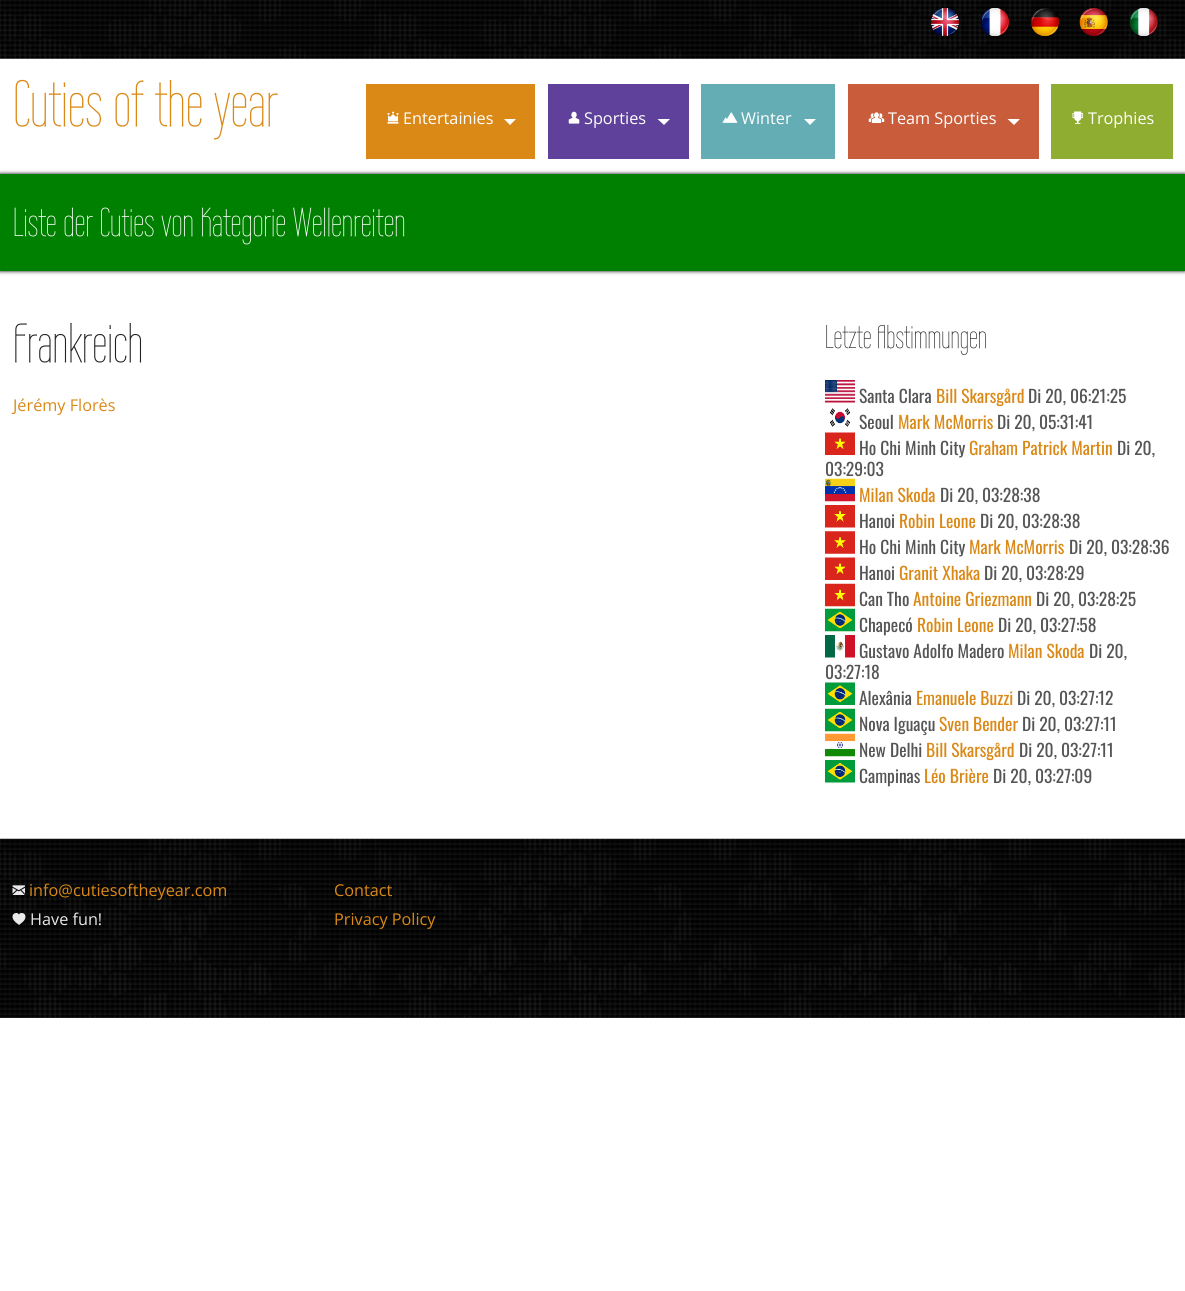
#include <cairo.h>
#include <math.h>
#include <stddef.h>


static void ink(cairo_t *ctx, unsigned color) {
    cairo_set_source_rgb(ctx, (color >> 16) / 255.0, (color >> 8 & 255) / 255.0, (color & 255) / 255.0);
}

static void round_path(cairo_t *ctx, double x, double y, double w, double h, double r) {
    cairo_new_sub_path(ctx);
    cairo_arc(ctx, x + w - r, y + h - r, r, 0, M_PI / 2);
    cairo_arc(ctx, x + r, y + h - r, r, M_PI / 2, M_PI);
    cairo_arc(ctx, x + r, y + r, r, M_PI, 1.5 * M_PI);
    cairo_arc(ctx, x + w - r, y + r, r, 1.5 * M_PI, 2 * M_PI);
    cairo_close_path(ctx);
}

static void blur_box(cairo_t *ctx, double x, double y, double w, double h, double r, double blur, double alpha) {
    cairo_push_group_with_content(ctx, CAIRO_CONTENT_ALPHA);
    cairo_set_operator(ctx, CAIRO_OPERATOR_SOURCE);
    for (int i = 15; i >= -15 && fmin(w, h) + blur * i / 3 > 0; i -= 2) {
        double e = blur * i / 6;
        cairo_set_source_rgba(ctx, 0, 0, 0, alpha * erfc((i - 1) / 8.5) / 2);
        round_path(ctx, x - e, y - e, w + 2 * e, h + 2 * e, fmax(0, fmin(r + e + blur * .6, fmin(w, h) / 2 + e)));
        cairo_fill(ctx);
    }
    cairo_pattern_t *soft = cairo_pop_group(ctx);
    cairo_mask(ctx, soft);
    cairo_pattern_destroy(soft);
}

static void paste(cairo_t *ctx, const char *path, double x, double y, double w, double h) {
    cairo_surface_t *image = cairo_image_surface_create_from_png(path);
    cairo_save(ctx);
    cairo_set_source_surface(ctx, image, x, y);
    cairo_rectangle(ctx, x, y, w, h);
    cairo_fill(ctx);
    cairo_restore(ctx);
    cairo_surface_destroy(image);
}

int main(void) {
    cairo_surface_t *surface = cairo_image_surface_create(CAIRO_FORMAT_RGB24, 1185, 1291);
    cairo_t *ctx = cairo_create(surface);
    cairo_font_options_t *options = cairo_font_options_create();
    cairo_font_options_set_hint_metrics(options, CAIRO_HINT_METRICS_OFF);
    cairo_font_options_set_hint_style(options, CAIRO_HINT_STYLE_NONE);
    cairo_set_font_options(ctx, options);
    cairo_set_miter_limit(ctx, 4);
    ink(ctx, 0xFFFFFF);
    cairo_paint(ctx);
    paste(ctx, "media/1.png", 0, 0, 1185, 59);
    paste(ctx, "media/2.png", 930, 8, 30, 29);
    paste(ctx, "media/3.png", 980, 8, 29, 28);
    paste(ctx, "media/4.png", 1031, 8, 28, 28);
    paste(ctx, "media/5.png", 1079, 8, 29, 28);
    paste(ctx, "media/6.png", 1129, 8, 29, 29);
    cairo_select_font_face(ctx, "Wire One", CAIRO_FONT_SLANT_NORMAL, CAIRO_FONT_WEIGHT_NORMAL);
    cairo_set_font_size(ctx, 65);
    ink(ctx, 0xDB8916);
    cairo_move_to(ctx, 13, 126);
    cairo_show_text(ctx, "Cuties of the year");
    cairo_rectangle(ctx, 366, 84, 169, 75);
    cairo_fill(ctx);
    paste(ctx, "media/7.png", 387, 111, 12, 13);
    cairo_select_font_face(ctx, "Open Sans", CAIRO_FONT_SLANT_NORMAL, CAIRO_FONT_WEIGHT_NORMAL);
    cairo_set_font_size(ctx, 16.25);
    ink(ctx, 0xFFFFFF);
    cairo_move_to(ctx, 403, 124);
    cairo_show_text(ctx, "Entertainies");
    cairo_new_path(ctx);
    cairo_move_to(ctx, 504, 119);
    cairo_line_to(ctx, 516, 119);
    cairo_line_to(ctx, 510, 125);
    cairo_close_path(ctx);
    cairo_fill(ctx);
    ink(ctx, 0x5F419B);
    cairo_rectangle(ctx, 548, 84, 141, 75);
    cairo_fill(ctx);
    paste(ctx, "media/8.png", 568, 111, 12, 13);
    ink(ctx, 0xFFFFFF);
    cairo_move_to(ctx, 584, 124);
    cairo_show_text(ctx, "Sporties");
    cairo_new_path(ctx);
    cairo_move_to(ctx, 657.5, 119);
    cairo_line_to(ctx, 670, 119);
    cairo_line_to(ctx, 664, 125);
    cairo_close_path(ctx);
    cairo_fill(ctx);
    ink(ctx, 0x64ADB5);
    cairo_rectangle(ctx, 701, 84, 134, 75);
    cairo_fill(ctx);
    paste(ctx, "media/9.png", 722, 112, 16, 11);
    ink(ctx, 0xFFFFFF);
    cairo_move_to(ctx, 741, 124);
    cairo_show_text(ctx, "Winter");
    cairo_new_path(ctx);
    cairo_move_to(ctx, 804, 119);
    cairo_line_to(ctx, 816, 119);
    cairo_line_to(ctx, 810, 125);
    cairo_close_path(ctx);
    cairo_fill(ctx);
    ink(ctx, 0xC95D3B);
    cairo_rectangle(ctx, 848, 84, 191, 75);
    cairo_fill(ctx);
    paste(ctx, "media/10.png", 868, 112, 17, 11);
    ink(ctx, 0xFFFFFF);
    cairo_move_to(ctx, 888, 124);
    cairo_show_text(ctx, "Team Sporties");
    cairo_new_path(ctx);
    cairo_move_to(ctx, 1007.5, 119);
    cairo_line_to(ctx, 1020, 119);
    cairo_line_to(ctx, 1014, 125);
    cairo_close_path(ctx);
    cairo_fill(ctx);
    ink(ctx, 0x8FAD30);
    cairo_rectangle(ctx, 1051, 84, 122, 75);
    cairo_fill(ctx);
    paste(ctx, "media/11.png", 1072, 111, 11, 13);
    ink(ctx, 0xFFFFFF);
    cairo_move_to(ctx, 1088, 124);
    cairo_show_text(ctx, "Trophies");
    ink(ctx, 0x000000);
    blur_box(ctx, 0, 174, 1185, 97, 0, 2, 1);
    ink(ctx, 0x008000);
    cairo_rectangle(ctx, 0, 174, 1185, 97);
    cairo_fill(ctx);
    cairo_select_font_face(ctx, "Wire One", CAIRO_FONT_SLANT_NORMAL, CAIRO_FONT_WEIGHT_NORMAL);
    cairo_set_font_size(ctx, 40);
    ink(ctx, 0xFFFFFF);
    cairo_move_to(ctx, 13, 236);
    cairo_show_text(ctx, "Liste der Cuties von Kategorie Wellenreiten");
    cairo_set_font_size(ctx, 55);
    ink(ctx, 0x222222);
    cairo_move_to(ctx, 13, 362);
    cairo_show_text(ctx, "Frankreich");
    cairo_select_font_face(ctx, "Open Sans", CAIRO_FONT_SLANT_NORMAL, CAIRO_FONT_WEIGHT_NORMAL);
    cairo_set_font_size(ctx, 16.25);
    ink(ctx, 0xDB8916);
    cairo_move_to(ctx, 13, 411);
    cairo_show_text(ctx, "Jérémy Florès");
    cairo_select_font_face(ctx, "Wire One", CAIRO_FONT_SLANT_NORMAL, CAIRO_FONT_WEIGHT_NORMAL);
    cairo_set_font_size(ctx, 32.5);
    ink(ctx, 0x222222);
    cairo_move_to(ctx, 825, 348);
    cairo_show_text(ctx, "Letzte Abstimmungen");
    paste(ctx, "media/12.png", 825, 380, 30, 23);
    cairo_select_font_face(ctx, "Oswald", CAIRO_FONT_SLANT_NORMAL, CAIRO_FONT_WEIGHT_NORMAL);
    cairo_set_font_size(ctx, 17.5);
    ink(ctx, 0x555555);
    cairo_move_to(ctx, 859, 403);
    cairo_show_text(ctx, "Santa Clara");
    ink(ctx, 0xDB8916);
    cairo_move_to(ctx, 936, 403);
    cairo_show_text(ctx, "Bill Skarsgård");
    ink(ctx, 0x555555);
    cairo_move_to(ctx, 1028, 403);
    cairo_show_text(ctx, "Di 20, 06:21:25");
    paste(ctx, "media/13.png", 829, 408, 22, 19);
    cairo_move_to(ctx, 859, 429);
    cairo_show_text(ctx, "Seoul");
    ink(ctx, 0xDB8916);
    cairo_move_to(ctx, 898, 429);
    cairo_show_text(ctx, "Mark McMorris");
    ink(ctx, 0x555555);
    cairo_move_to(ctx, 997, 429);
    cairo_show_text(ctx, "Di 20, 05:31:41");
    paste(ctx, "media/14.png", 825, 432, 30, 23);
    cairo_move_to(ctx, 859, 455);
    cairo_show_text(ctx, "Ho Chi Minh City");
    ink(ctx, 0xDB8916);
    cairo_move_to(ctx, 969, 455);
    cairo_show_text(ctx, "Graham Patrick Martin");
    ink(ctx, 0x555555);
    cairo_move_to(ctx, 1117, 455);
    cairo_show_text(ctx, "Di 20,");
    cairo_move_to(ctx, 825, 476);
    cairo_show_text(ctx, "03:29:03");
    paste(ctx, "media/15.png", 825, 478, 30, 24);
    ink(ctx, 0xDB8916);
    cairo_move_to(ctx, 859, 502);
    cairo_show_text(ctx, "Milan Skoda");
    ink(ctx, 0x555555);
    cairo_move_to(ctx, 940, 502);
    cairo_show_text(ctx, "Di 20, 03:28:38");
    paste(ctx, "media/16.png", 825, 505, 30, 23);
    cairo_move_to(ctx, 859, 528);
    cairo_show_text(ctx, "Hanoi");
    ink(ctx, 0xDB8916);
    cairo_move_to(ctx, 899, 528);
    cairo_show_text(ctx, "Robin Leone");
    ink(ctx, 0x555555);
    cairo_move_to(ctx, 980, 528);
    cairo_show_text(ctx, "Di 20, 03:28:38");
    paste(ctx, "media/17.png", 825, 531, 30, 23);
    cairo_move_to(ctx, 859, 554);
    cairo_show_text(ctx, "Ho Chi Minh City");
    ink(ctx, 0xDB8916);
    cairo_move_to(ctx, 969, 554);
    cairo_show_text(ctx, "Mark McMorris");
    ink(ctx, 0x555555);
    cairo_move_to(ctx, 1069, 554);
    cairo_show_text(ctx, "Di 20, 03:28:36");
    paste(ctx, "media/14.png", 825, 557, 30, 23);
    cairo_move_to(ctx, 859, 580);
    cairo_show_text(ctx, "Hanoi");
    ink(ctx, 0xDB8916);
    cairo_move_to(ctx, 899, 580);
    cairo_show_text(ctx, "Granit Xhaka");
    ink(ctx, 0x555555);
    cairo_move_to(ctx, 984, 580);
    cairo_show_text(ctx, "Di 20, 03:28:29");
    paste(ctx, "media/18.png", 825, 583, 30, 24);
    cairo_move_to(ctx, 859, 606);
    cairo_show_text(ctx, "Can Tho");
    ink(ctx, 0xDB8916);
    cairo_move_to(ctx, 913, 606);
    cairo_show_text(ctx, "Antoine Griezmann");
    ink(ctx, 0x555555);
    cairo_move_to(ctx, 1036, 606);
    cairo_show_text(ctx, "Di 20, 03:28:25");
    paste(ctx, "media/19.png", 825, 608, 30, 24);
    cairo_move_to(ctx, 859, 632);
    cairo_show_text(ctx, "Chapecó");
    ink(ctx, 0xDB8916);
    cairo_move_to(ctx, 917, 632);
    cairo_show_text(ctx, "Robin Leone");
    ink(ctx, 0x555555);
    cairo_move_to(ctx, 998, 632);
    cairo_show_text(ctx, "Di 20, 03:27:58");
    paste(ctx, "media/20.png", 825, 635, 30, 23);
    cairo_move_to(ctx, 859, 658);
    cairo_show_text(ctx, "Gustavo Adolfo Madero");
    ink(ctx, 0xDB8916);
    cairo_move_to(ctx, 1008, 658);
    cairo_show_text(ctx, "Milan Skoda");
    ink(ctx, 0x555555);
    cairo_move_to(ctx, 1089, 658);
    cairo_show_text(ctx, "Di 20,");
    cairo_move_to(ctx, 825, 679);
    cairo_show_text(ctx, "03:27:18");
    paste(ctx, "media/21.png", 825, 682, 30, 23);
    cairo_move_to(ctx, 859, 705);
    cairo_show_text(ctx, "Alexânia");
    ink(ctx, 0xDB8916);
    cairo_move_to(ctx, 916, 705);
    cairo_show_text(ctx, "Emanuele Buzzi");
    ink(ctx, 0x555555);
    cairo_move_to(ctx, 1017, 705);
    cairo_show_text(ctx, "Di 20, 03:27:12");
    paste(ctx, "media/19.png", 825, 708, 30, 24);
    cairo_move_to(ctx, 859, 731);
    cairo_show_text(ctx, "Nova Iguaçu");
    ink(ctx, 0xDB8916);
    cairo_move_to(ctx, 939, 731);
    cairo_show_text(ctx, "Sven Bender");
    ink(ctx, 0x555555);
    cairo_move_to(ctx, 1022, 731);
    cairo_show_text(ctx, "Di 20, 03:27:11");
    paste(ctx, "media/22.png", 825, 733, 30, 24);
    cairo_move_to(ctx, 859, 757);
    cairo_show_text(ctx, "New Delhi");
    ink(ctx, 0xDB8916);
    cairo_move_to(ctx, 926, 757);
    cairo_show_text(ctx, "Bill Skarsgård");
    ink(ctx, 0x555555);
    cairo_move_to(ctx, 1019, 757);
    cairo_show_text(ctx, "Di 20, 03:27:11");
    paste(ctx, "media/23.png", 825, 760, 30, 23);
    cairo_move_to(ctx, 859, 783);
    cairo_show_text(ctx, "Campinas");
    ink(ctx, 0xDB8916);
    cairo_move_to(ctx, 924, 783);
    cairo_show_text(ctx, "Léo Brière");
    ink(ctx, 0x555555);
    cairo_move_to(ctx, 993, 783);
    cairo_show_text(ctx, "Di 20, 03:27:09");
    ink(ctx, 0x333333);
    cairo_rectangle(ctx, 0, 1017, 1185, 1);
    cairo_fill(ctx);
    paste(ctx, "media/24.png", 0, 838, 1185, 180);
    paste(ctx, "media/25.png", 12, 885, 13, 10);
    cairo_select_font_face(ctx, "Open Sans", CAIRO_FONT_SLANT_NORMAL, CAIRO_FONT_WEIGHT_NORMAL);
    cairo_set_font_size(ctx, 16.25);
    ink(ctx, 0xDB8916);
    cairo_move_to(ctx, 29, 896);
    cairo_show_text(ctx, "info@cutiesoftheyear.com");
    paste(ctx, "media/26.png", 12, 913, 14, 12);
    ink(ctx, 0xE9E9E9);
    cairo_move_to(ctx, 30, 925);
    cairo_show_text(ctx, "Have fun!");
    ink(ctx, 0xDB8916);
    cairo_move_to(ctx, 334, 896);
    cairo_show_text(ctx, "Contact");
    cairo_move_to(ctx, 334, 925);
    cairo_show_text(ctx, "Privacy Policy");
    cairo_surface_write_to_png(surface, "image.png");
    cairo_font_options_destroy(options);
    cairo_destroy(ctx);
    cairo_surface_destroy(surface);
    return 0;
}
